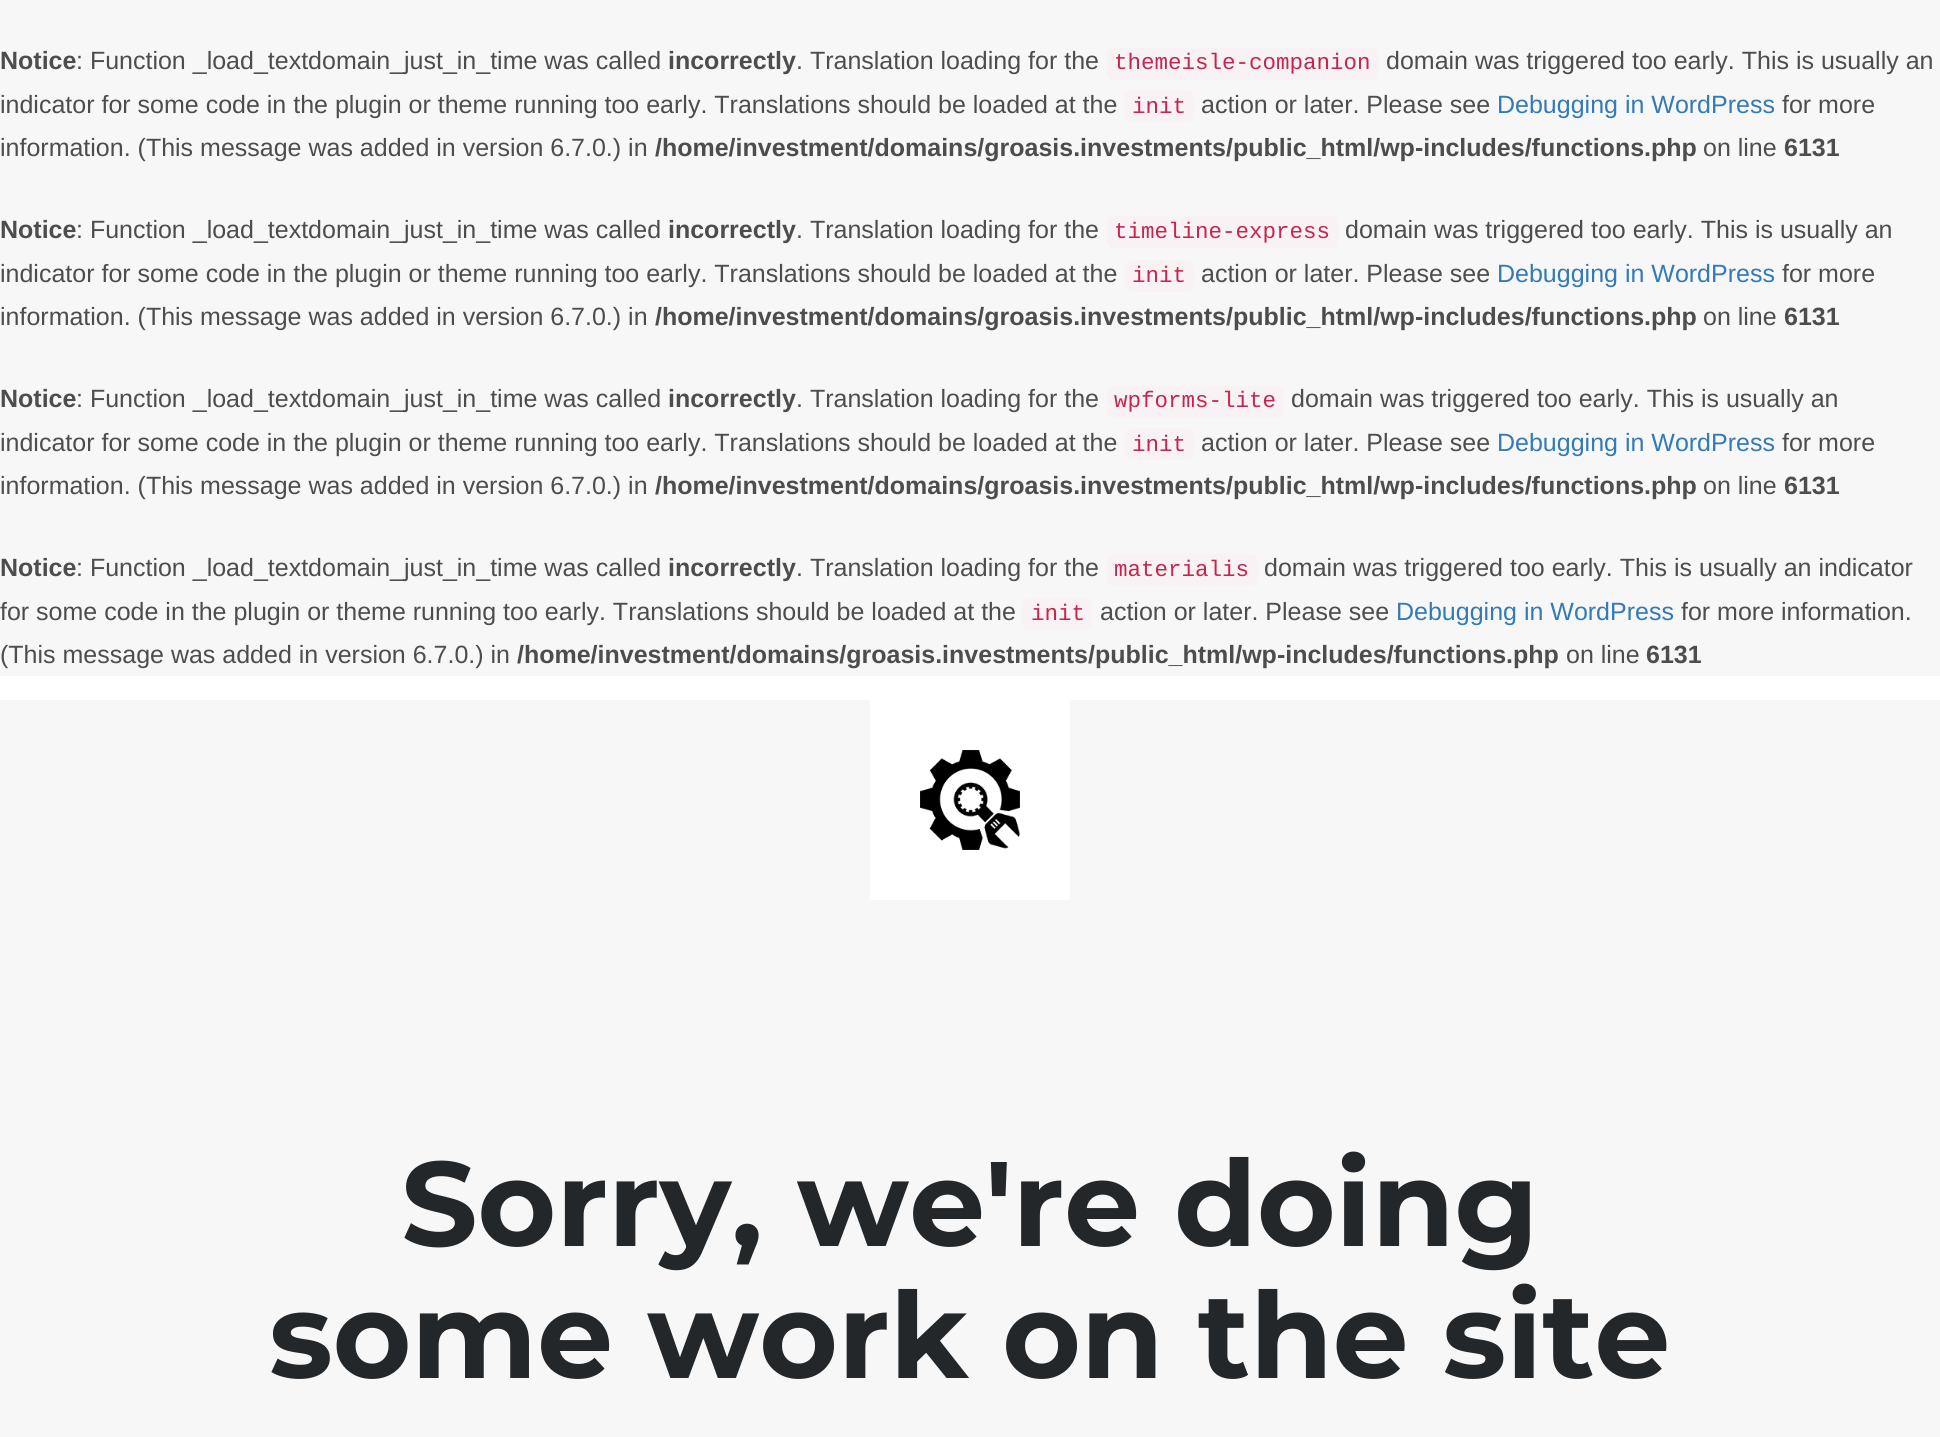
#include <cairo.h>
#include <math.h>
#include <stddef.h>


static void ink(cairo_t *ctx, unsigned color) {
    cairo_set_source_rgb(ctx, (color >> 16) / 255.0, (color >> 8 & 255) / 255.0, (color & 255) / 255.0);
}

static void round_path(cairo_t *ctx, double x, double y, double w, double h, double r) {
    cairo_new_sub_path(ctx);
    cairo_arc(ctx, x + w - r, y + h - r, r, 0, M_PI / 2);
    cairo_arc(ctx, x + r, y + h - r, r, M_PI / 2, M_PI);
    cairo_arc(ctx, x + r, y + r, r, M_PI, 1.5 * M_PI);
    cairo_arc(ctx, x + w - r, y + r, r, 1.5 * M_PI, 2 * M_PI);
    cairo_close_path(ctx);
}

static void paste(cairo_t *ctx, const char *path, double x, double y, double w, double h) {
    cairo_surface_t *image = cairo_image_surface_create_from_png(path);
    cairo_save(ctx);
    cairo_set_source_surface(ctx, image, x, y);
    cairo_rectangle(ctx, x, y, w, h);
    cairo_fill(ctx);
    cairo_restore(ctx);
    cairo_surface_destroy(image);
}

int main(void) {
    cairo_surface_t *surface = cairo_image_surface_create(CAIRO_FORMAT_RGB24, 1940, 1437);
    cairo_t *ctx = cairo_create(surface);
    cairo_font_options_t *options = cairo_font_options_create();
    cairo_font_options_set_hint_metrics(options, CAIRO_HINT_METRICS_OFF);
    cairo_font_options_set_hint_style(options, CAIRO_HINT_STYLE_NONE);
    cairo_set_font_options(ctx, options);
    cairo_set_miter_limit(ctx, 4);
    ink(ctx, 0xF7F7F7);
    cairo_paint(ctx);
    cairo_select_font_face(ctx, "Liberation Sans", CAIRO_FONT_SLANT_NORMAL, CAIRO_FONT_WEIGHT_BOLD);
    cairo_set_font_size(ctx, 25);
    ink(ctx, 0x4D4D4D);
    cairo_move_to(ctx, 0, 69);
    cairo_show_text(ctx, "Notice");
    cairo_select_font_face(ctx, "Liberation Sans", CAIRO_FONT_SLANT_NORMAL, CAIRO_FONT_WEIGHT_NORMAL);
    cairo_move_to(ctx, 76, 69);
    cairo_show_text(ctx, ": Function _load_textdomain_just_in_time was called");
    cairo_select_font_face(ctx, "Liberation Sans", CAIRO_FONT_SLANT_NORMAL, CAIRO_FONT_WEIGHT_BOLD);
    cairo_move_to(ctx, 668, 69);
    cairo_show_text(ctx, "incorrectly");
    cairo_select_font_face(ctx, "Liberation Sans", CAIRO_FONT_SLANT_NORMAL, CAIRO_FONT_WEIGHT_NORMAL);
    cairo_move_to(ctx, 796, 69);
    cairo_show_text(ctx, ". Translation loading for the");
    ink(ctx, 0xF9F2F4);
    round_path(ctx, 1106, 48, 272, 32, 8);
    cairo_fill(ctx);
    cairo_select_font_face(ctx, "Liberation Mono", CAIRO_FONT_SLANT_NORMAL, CAIRO_FONT_WEIGHT_NORMAL);
    cairo_set_font_size(ctx, 22.5);
    ink(ctx, 0xC7254E);
    cairo_move_to(ctx, 1114, 69);
    cairo_show_text(ctx, "themeisle-companion");
    cairo_select_font_face(ctx, "Liberation Sans", CAIRO_FONT_SLANT_NORMAL, CAIRO_FONT_WEIGHT_NORMAL);
    cairo_set_font_size(ctx, 25);
    ink(ctx, 0x4D4D4D);
    cairo_move_to(ctx, 1386, 69);
    cairo_show_text(ctx, "domain was triggered too early. This is usually an");
    cairo_move_to(ctx, 0, 113);
    cairo_show_text(ctx, "indicator for some code in the plugin or theme running too early. Translations should be loaded at the");
    ink(ctx, 0xF9F2F4);
    round_path(ctx, 1124, 90, 70, 32, 8);
    cairo_fill(ctx);
    cairo_select_font_face(ctx, "Liberation Mono", CAIRO_FONT_SLANT_NORMAL, CAIRO_FONT_WEIGHT_NORMAL);
    cairo_set_font_size(ctx, 22.5);
    ink(ctx, 0xC7254E);
    cairo_move_to(ctx, 1132, 113);
    cairo_show_text(ctx, "init");
    cairo_select_font_face(ctx, "Liberation Sans", CAIRO_FONT_SLANT_NORMAL, CAIRO_FONT_WEIGHT_NORMAL);
    cairo_set_font_size(ctx, 25);
    ink(ctx, 0x4D4D4D);
    cairo_move_to(ctx, 1201, 113);
    cairo_show_text(ctx, "action or later. Please see");
    ink(ctx, 0x337AB7);
    cairo_move_to(ctx, 1497, 113);
    cairo_show_text(ctx, "Debugging in WordPress");
    ink(ctx, 0x4D4D4D);
    cairo_move_to(ctx, 1782, 113);
    cairo_show_text(ctx, "for more");
    cairo_move_to(ctx, 0, 156);
    cairo_show_text(ctx, "information. (This message was added in version 6.7.0.) in");
    cairo_select_font_face(ctx, "Liberation Sans", CAIRO_FONT_SLANT_NORMAL, CAIRO_FONT_WEIGHT_BOLD);
    cairo_move_to(ctx, 655, 156);
    cairo_show_text(ctx, "/home/investment/domains/groasis.investments/public_html/wp-includes/functions.php");
    cairo_select_font_face(ctx, "Liberation Sans", CAIRO_FONT_SLANT_NORMAL, CAIRO_FONT_WEIGHT_NORMAL);
    cairo_move_to(ctx, 1703, 156);
    cairo_show_text(ctx, "on line");
    cairo_select_font_face(ctx, "Liberation Sans", CAIRO_FONT_SLANT_NORMAL, CAIRO_FONT_WEIGHT_BOLD);
    cairo_move_to(ctx, 1784, 156);
    cairo_show_text(ctx, "6131");
    cairo_move_to(ctx, 0, 238);
    cairo_show_text(ctx, "Notice");
    cairo_select_font_face(ctx, "Liberation Sans", CAIRO_FONT_SLANT_NORMAL, CAIRO_FONT_WEIGHT_NORMAL);
    cairo_move_to(ctx, 76, 238);
    cairo_show_text(ctx, ": Function _load_textdomain_just_in_time was called");
    cairo_select_font_face(ctx, "Liberation Sans", CAIRO_FONT_SLANT_NORMAL, CAIRO_FONT_WEIGHT_BOLD);
    cairo_move_to(ctx, 668, 238);
    cairo_show_text(ctx, "incorrectly");
    cairo_select_font_face(ctx, "Liberation Sans", CAIRO_FONT_SLANT_NORMAL, CAIRO_FONT_WEIGHT_NORMAL);
    cairo_move_to(ctx, 796, 238);
    cairo_show_text(ctx, ". Translation loading for the");
    ink(ctx, 0xF9F2F4);
    round_path(ctx, 1106, 216, 232, 32, 8);
    cairo_fill(ctx);
    cairo_select_font_face(ctx, "Liberation Mono", CAIRO_FONT_SLANT_NORMAL, CAIRO_FONT_WEIGHT_NORMAL);
    cairo_set_font_size(ctx, 22.5);
    ink(ctx, 0xC7254E);
    cairo_move_to(ctx, 1114, 238);
    cairo_show_text(ctx, "timeline-express");
    cairo_select_font_face(ctx, "Liberation Sans", CAIRO_FONT_SLANT_NORMAL, CAIRO_FONT_WEIGHT_NORMAL);
    cairo_set_font_size(ctx, 25);
    ink(ctx, 0x4D4D4D);
    cairo_move_to(ctx, 1345, 238);
    cairo_show_text(ctx, "domain was triggered too early. This is usually an");
    cairo_move_to(ctx, 0, 282);
    cairo_show_text(ctx, "indicator for some code in the plugin or theme running too early. Translations should be loaded at the");
    ink(ctx, 0xF9F2F4);
    round_path(ctx, 1124, 260, 70, 32, 8);
    cairo_fill(ctx);
    cairo_select_font_face(ctx, "Liberation Mono", CAIRO_FONT_SLANT_NORMAL, CAIRO_FONT_WEIGHT_NORMAL);
    cairo_set_font_size(ctx, 22.5);
    ink(ctx, 0xC7254E);
    cairo_move_to(ctx, 1132, 282);
    cairo_show_text(ctx, "init");
    cairo_select_font_face(ctx, "Liberation Sans", CAIRO_FONT_SLANT_NORMAL, CAIRO_FONT_WEIGHT_NORMAL);
    cairo_set_font_size(ctx, 25);
    ink(ctx, 0x4D4D4D);
    cairo_move_to(ctx, 1201, 282);
    cairo_show_text(ctx, "action or later. Please see");
    ink(ctx, 0x337AB7);
    cairo_move_to(ctx, 1497, 282);
    cairo_show_text(ctx, "Debugging in WordPress");
    ink(ctx, 0x4D4D4D);
    cairo_move_to(ctx, 1782, 282);
    cairo_show_text(ctx, "for more");
    cairo_move_to(ctx, 0, 325);
    cairo_show_text(ctx, "information. (This message was added in version 6.7.0.) in");
    cairo_select_font_face(ctx, "Liberation Sans", CAIRO_FONT_SLANT_NORMAL, CAIRO_FONT_WEIGHT_BOLD);
    cairo_move_to(ctx, 655, 325);
    cairo_show_text(ctx, "/home/investment/domains/groasis.investments/public_html/wp-includes/functions.php");
    cairo_select_font_face(ctx, "Liberation Sans", CAIRO_FONT_SLANT_NORMAL, CAIRO_FONT_WEIGHT_NORMAL);
    cairo_move_to(ctx, 1703, 325);
    cairo_show_text(ctx, "on line");
    cairo_select_font_face(ctx, "Liberation Sans", CAIRO_FONT_SLANT_NORMAL, CAIRO_FONT_WEIGHT_BOLD);
    cairo_move_to(ctx, 1784, 325);
    cairo_show_text(ctx, "6131");
    cairo_move_to(ctx, 0, 407);
    cairo_show_text(ctx, "Notice");
    cairo_select_font_face(ctx, "Liberation Sans", CAIRO_FONT_SLANT_NORMAL, CAIRO_FONT_WEIGHT_NORMAL);
    cairo_move_to(ctx, 76, 407);
    cairo_show_text(ctx, ": Function _load_textdomain_just_in_time was called");
    cairo_select_font_face(ctx, "Liberation Sans", CAIRO_FONT_SLANT_NORMAL, CAIRO_FONT_WEIGHT_BOLD);
    cairo_move_to(ctx, 668, 407);
    cairo_show_text(ctx, "incorrectly");
    cairo_select_font_face(ctx, "Liberation Sans", CAIRO_FONT_SLANT_NORMAL, CAIRO_FONT_WEIGHT_NORMAL);
    cairo_move_to(ctx, 796, 407);
    cairo_show_text(ctx, ". Translation loading for the");
    ink(ctx, 0xF9F2F4);
    round_path(ctx, 1106, 386, 178, 32, 8);
    cairo_fill(ctx);
    cairo_select_font_face(ctx, "Liberation Mono", CAIRO_FONT_SLANT_NORMAL, CAIRO_FONT_WEIGHT_NORMAL);
    cairo_set_font_size(ctx, 22.5);
    ink(ctx, 0xC7254E);
    cairo_move_to(ctx, 1114, 407);
    cairo_show_text(ctx, "wpforms-lite");
    cairo_select_font_face(ctx, "Liberation Sans", CAIRO_FONT_SLANT_NORMAL, CAIRO_FONT_WEIGHT_NORMAL);
    cairo_set_font_size(ctx, 25);
    ink(ctx, 0x4D4D4D);
    cairo_move_to(ctx, 1291, 407);
    cairo_show_text(ctx, "domain was triggered too early. This is usually an");
    cairo_move_to(ctx, 0, 451);
    cairo_show_text(ctx, "indicator for some code in the plugin or theme running too early. Translations should be loaded at the");
    ink(ctx, 0xF9F2F4);
    round_path(ctx, 1124, 428, 70, 32, 8);
    cairo_fill(ctx);
    cairo_select_font_face(ctx, "Liberation Mono", CAIRO_FONT_SLANT_NORMAL, CAIRO_FONT_WEIGHT_NORMAL);
    cairo_set_font_size(ctx, 22.5);
    ink(ctx, 0xC7254E);
    cairo_move_to(ctx, 1132, 451);
    cairo_show_text(ctx, "init");
    cairo_select_font_face(ctx, "Liberation Sans", CAIRO_FONT_SLANT_NORMAL, CAIRO_FONT_WEIGHT_NORMAL);
    cairo_set_font_size(ctx, 25);
    ink(ctx, 0x4D4D4D);
    cairo_move_to(ctx, 1201, 451);
    cairo_show_text(ctx, "action or later. Please see");
    ink(ctx, 0x337AB7);
    cairo_move_to(ctx, 1497, 451);
    cairo_show_text(ctx, "Debugging in WordPress");
    ink(ctx, 0x4D4D4D);
    cairo_move_to(ctx, 1782, 451);
    cairo_show_text(ctx, "for more");
    cairo_move_to(ctx, 0, 494);
    cairo_show_text(ctx, "information. (This message was added in version 6.7.0.) in");
    cairo_select_font_face(ctx, "Liberation Sans", CAIRO_FONT_SLANT_NORMAL, CAIRO_FONT_WEIGHT_BOLD);
    cairo_move_to(ctx, 655, 494);
    cairo_show_text(ctx, "/home/investment/domains/groasis.investments/public_html/wp-includes/functions.php");
    cairo_select_font_face(ctx, "Liberation Sans", CAIRO_FONT_SLANT_NORMAL, CAIRO_FONT_WEIGHT_NORMAL);
    cairo_move_to(ctx, 1703, 494);
    cairo_show_text(ctx, "on line");
    cairo_select_font_face(ctx, "Liberation Sans", CAIRO_FONT_SLANT_NORMAL, CAIRO_FONT_WEIGHT_BOLD);
    cairo_move_to(ctx, 1784, 494);
    cairo_show_text(ctx, "6131");
    cairo_move_to(ctx, 0, 576);
    cairo_show_text(ctx, "Notice");
    cairo_select_font_face(ctx, "Liberation Sans", CAIRO_FONT_SLANT_NORMAL, CAIRO_FONT_WEIGHT_NORMAL);
    cairo_move_to(ctx, 76, 576);
    cairo_show_text(ctx, ": Function _load_textdomain_just_in_time was called");
    cairo_select_font_face(ctx, "Liberation Sans", CAIRO_FONT_SLANT_NORMAL, CAIRO_FONT_WEIGHT_BOLD);
    cairo_move_to(ctx, 668, 576);
    cairo_show_text(ctx, "incorrectly");
    cairo_select_font_face(ctx, "Liberation Sans", CAIRO_FONT_SLANT_NORMAL, CAIRO_FONT_WEIGHT_NORMAL);
    cairo_move_to(ctx, 796, 576);
    cairo_show_text(ctx, ". Translation loading for the");
    ink(ctx, 0xF9F2F4);
    round_path(ctx, 1106, 554, 152, 32, 8);
    cairo_fill(ctx);
    cairo_select_font_face(ctx, "Liberation Mono", CAIRO_FONT_SLANT_NORMAL, CAIRO_FONT_WEIGHT_NORMAL);
    cairo_set_font_size(ctx, 22.5);
    ink(ctx, 0xC7254E);
    cairo_move_to(ctx, 1114, 576);
    cairo_show_text(ctx, "materialis");
    cairo_select_font_face(ctx, "Liberation Sans", CAIRO_FONT_SLANT_NORMAL, CAIRO_FONT_WEIGHT_NORMAL);
    cairo_set_font_size(ctx, 25);
    ink(ctx, 0x4D4D4D);
    cairo_move_to(ctx, 1264, 576);
    cairo_show_text(ctx, "domain was triggered too early. This is usually an indicator");
    cairo_move_to(ctx, 0, 620);
    cairo_show_text(ctx, "for some code in the plugin or theme running too early. Translations should be loaded at the");
    ink(ctx, 0xF9F2F4);
    round_path(ctx, 1022, 598, 70, 32, 8);
    cairo_fill(ctx);
    cairo_select_font_face(ctx, "Liberation Mono", CAIRO_FONT_SLANT_NORMAL, CAIRO_FONT_WEIGHT_NORMAL);
    cairo_set_font_size(ctx, 22.5);
    ink(ctx, 0xC7254E);
    cairo_move_to(ctx, 1031, 620);
    cairo_show_text(ctx, "init");
    cairo_select_font_face(ctx, "Liberation Sans", CAIRO_FONT_SLANT_NORMAL, CAIRO_FONT_WEIGHT_NORMAL);
    cairo_set_font_size(ctx, 25);
    ink(ctx, 0x4D4D4D);
    cairo_move_to(ctx, 1100, 620);
    cairo_show_text(ctx, "action or later. Please see");
    ink(ctx, 0x337AB7);
    cairo_move_to(ctx, 1396, 620);
    cairo_show_text(ctx, "Debugging in WordPress");
    ink(ctx, 0x4D4D4D);
    cairo_move_to(ctx, 1681, 620);
    cairo_show_text(ctx, "for more information.");
    cairo_move_to(ctx, 0, 663);
    cairo_show_text(ctx, "(This message was added in version 6.7.0.) in");
    cairo_select_font_face(ctx, "Liberation Sans", CAIRO_FONT_SLANT_NORMAL, CAIRO_FONT_WEIGHT_BOLD);
    cairo_move_to(ctx, 517, 663);
    cairo_show_text(ctx, "/home/investment/domains/groasis.investments/public_html/wp-includes/functions.php");
    cairo_select_font_face(ctx, "Liberation Sans", CAIRO_FONT_SLANT_NORMAL, CAIRO_FONT_WEIGHT_NORMAL);
    cairo_move_to(ctx, 1566, 663);
    cairo_show_text(ctx, "on line");
    cairo_select_font_face(ctx, "Liberation Sans", CAIRO_FONT_SLANT_NORMAL, CAIRO_FONT_WEIGHT_BOLD);
    cairo_move_to(ctx, 1646, 663);
    cairo_show_text(ctx, "6131");
    ink(ctx, 0xFFFFFF);
    cairo_rectangle(ctx, 0, 676, 1940, 24);
    cairo_fill(ctx);
    cairo_rectangle(ctx, 870, 700, 200, 200);
    cairo_fill(ctx);
    paste(ctx, "media/1.png", 920, 750, 100, 100);
    cairo_select_font_face(ctx, "Montserrat Thin", CAIRO_FONT_SLANT_NORMAL, CAIRO_FONT_WEIGHT_NORMAL);
    cairo_set_font_size(ctx, 120);
    ink(ctx, 0x23272A);
    cairo_move_to(ctx, 401, 1246);
    cairo_show_text(ctx, "Sorry, we're doing");
    cairo_move_to(ctx, 269, 1378);
    cairo_show_text(ctx, "some work on the site");
    cairo_surface_write_to_png(surface, "image.png");
    cairo_font_options_destroy(options);
    cairo_destroy(ctx);
    cairo_surface_destroy(surface);
    return 0;
}
